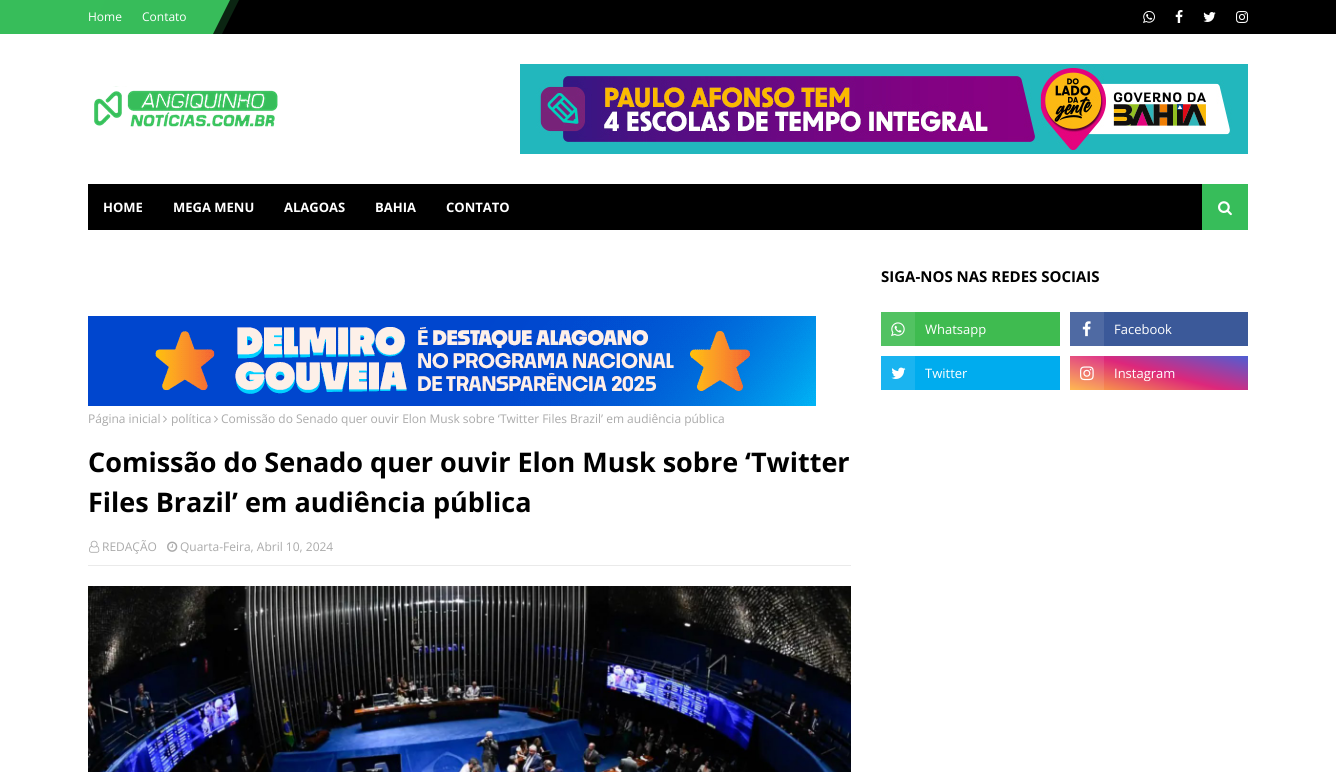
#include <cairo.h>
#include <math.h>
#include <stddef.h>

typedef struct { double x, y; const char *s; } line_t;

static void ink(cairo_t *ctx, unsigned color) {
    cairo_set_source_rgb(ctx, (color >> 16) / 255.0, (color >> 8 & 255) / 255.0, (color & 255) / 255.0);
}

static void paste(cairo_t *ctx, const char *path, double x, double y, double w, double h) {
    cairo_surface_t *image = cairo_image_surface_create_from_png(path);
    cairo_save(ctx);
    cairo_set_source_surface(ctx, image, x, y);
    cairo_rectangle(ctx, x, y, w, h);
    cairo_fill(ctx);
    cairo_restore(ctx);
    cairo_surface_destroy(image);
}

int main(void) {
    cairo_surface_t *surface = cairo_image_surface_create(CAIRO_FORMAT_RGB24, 1336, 772);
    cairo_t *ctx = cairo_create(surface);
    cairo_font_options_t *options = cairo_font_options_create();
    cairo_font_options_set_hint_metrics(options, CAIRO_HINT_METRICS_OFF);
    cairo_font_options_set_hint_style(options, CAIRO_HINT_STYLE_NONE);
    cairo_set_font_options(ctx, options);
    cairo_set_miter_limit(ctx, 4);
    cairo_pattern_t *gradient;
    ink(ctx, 0xFFFFFF);
    cairo_paint(ctx);
    ink(ctx, 0x000000);
    cairo_rectangle(ctx, 213, 0, 1123, 34);
    cairo_fill(ctx);
    ink(ctx, 0x37BD5A);
    cairo_rectangle(ctx, 0, 0, 96, 34);
    cairo_fill(ctx);
    cairo_new_path(ctx);
    cairo_move_to(ctx, 96, 0);
    cairo_line_to(ctx, 230, 0);
    cairo_line_to(ctx, 213, 34);
    cairo_line_to(ctx, 80, 34);
    cairo_close_path(ctx);
    cairo_fill(ctx);
    cairo_set_source_rgba(ctx, 0.216, 0.741, 0.353, 0.2);
    cairo_new_path(ctx);
    cairo_move_to(ctx, 105, 0);
    cairo_line_to(ctx, 239, 0);
    cairo_line_to(ctx, 222, 34);
    cairo_line_to(ctx, 89, 34);
    cairo_close_path(ctx);
    cairo_fill(ctx);
    cairo_select_font_face(ctx, "Open Sans", CAIRO_FONT_SLANT_NORMAL, CAIRO_FONT_WEIGHT_NORMAL);
    cairo_set_font_size(ctx, 12);
    ink(ctx, 0xFFFFFF);
    cairo_move_to(ctx, 88, 21);
    cairo_show_text(ctx, "Home");
    cairo_move_to(ctx, 142, 21);
    cairo_show_text(ctx, "Contato");
    paste(ctx, "media/1.png", 1143, 11, 12, 12);
    paste(ctx, "media/2.png", 1175, 10, 8, 13);
    paste(ctx, "media/3.png", 1203, 12, 13, 10);
    paste(ctx, "media/4.png", 1236, 11, 12, 12);
    paste(ctx, "media/5.png", 94, 86, 184, 41);
    paste(ctx, "media/6.png", 520, 64, 728, 90);
    ink(ctx, 0x000000);
    cairo_rectangle(ctx, 88, 184, 1114, 46);
    cairo_fill(ctx);
    cairo_select_font_face(ctx, "Open Sans", CAIRO_FONT_SLANT_NORMAL, CAIRO_FONT_WEIGHT_BOLD);
    cairo_set_font_size(ctx, 13);
    ink(ctx, 0xFFFFFF);
    {
        static const line_t items[] = {
            {103, 212, "HOME"},
            {173, 212, "MEGA MENU"},
            {284, 212, "ALAGOAS"},
            {375, 212, "BAHIA"},
            {446, 212, "CONTATO"},
        };
        for (size_t i = 0; i < sizeof items / sizeof *items; i++) {
            cairo_move_to(ctx, items[i].x, items[i].y);
            cairo_show_text(ctx, items[i].s);
        }
    }
    ink(ctx, 0x37BD5A);
    cairo_rectangle(ctx, 1202, 184, 46, 46);
    cairo_fill(ctx);
    paste(ctx, "media/7.png", 1218, 201, 14, 15);
    cairo_set_font_size(ctx, 15);
    ink(ctx, 0x000000);
    cairo_move_to(ctx, 881, 282);
    cairo_show_text(ctx, "SIGA-NOS NAS REDES SOCIAIS");
    ink(ctx, 0x3FBB50);
    cairo_rectangle(ctx, 915, 312, 145, 34);
    cairo_fill(ctx);
    ink(ctx, 0x52C262);
    cairo_rectangle(ctx, 881, 312, 34, 34);
    cairo_fill(ctx);
    paste(ctx, "media/8.png", 891, 322, 14, 15);
    cairo_select_font_face(ctx, "Open Sans", CAIRO_FONT_SLANT_NORMAL, CAIRO_FONT_WEIGHT_NORMAL);
    cairo_set_font_size(ctx, 13);
    ink(ctx, 0xFFFFFF);
    cairo_move_to(ctx, 925, 334);
    cairo_show_text(ctx, "Whatsapp");
    ink(ctx, 0x3B5999);
    cairo_rectangle(ctx, 1104, 312, 144, 34);
    cairo_fill(ctx);
    ink(ctx, 0x4F6AA3);
    cairo_rectangle(ctx, 1070, 312, 34, 34);
    cairo_fill(ctx);
    paste(ctx, "media/9.png", 1082, 321, 9, 16);
    ink(ctx, 0xFFFFFF);
    cairo_move_to(ctx, 1114, 334);
    cairo_show_text(ctx, "Facebook");
    ink(ctx, 0x00ACEE);
    cairo_rectangle(ctx, 915, 356, 145, 34);
    cairo_fill(ctx);
    ink(ctx, 0x1AB4F0);
    cairo_rectangle(ctx, 881, 356, 34, 34);
    cairo_fill(ctx);
    paste(ctx, "media/10.png", 891, 367, 15, 12);
    ink(ctx, 0xFFFFFF);
    cairo_move_to(ctx, 925, 378);
    cairo_show_text(ctx, "Twitter");
    gradient = cairo_pattern_create_linear(1149, 411, 1169, 335);
    cairo_pattern_add_color_stop_rgba(gradient, 0, 1, 0.694, 0.239, 1);
    cairo_pattern_add_color_stop_rgba(gradient, 0.5, 0.867, 0.153, 0.482, 1);
    cairo_pattern_add_color_stop_rgba(gradient, 1, 0.302, 0.369, 0.831, 1);
    cairo_set_source(ctx, gradient);
    cairo_pattern_destroy(gradient);
    cairo_rectangle(ctx, 1104, 356, 144, 34);
    cairo_fill(ctx);
    gradient = cairo_pattern_create_linear(1149, 411, 1169, 335);
    cairo_pattern_add_color_stop_rgba(gradient, 0, 1, 0.725, 0.314, 1);
    cairo_pattern_add_color_stop_rgba(gradient, 0.5, 0.878, 0.239, 0.533, 1);
    cairo_pattern_add_color_stop_rgba(gradient, 1, 0.373, 0.431, 0.847, 1);
    cairo_set_source(ctx, gradient);
    cairo_pattern_destroy(gradient);
    cairo_rectangle(ctx, 1070, 356, 34, 34);
    cairo_fill(ctx);
    paste(ctx, "media/11.png", 1080, 366, 14, 15);
    ink(ctx, 0xFFFFFF);
    cairo_move_to(ctx, 1114, 378);
    cairo_show_text(ctx, "Instagram");
    paste(ctx, "media/12.png", 88, 316, 728, 90);
    cairo_set_font_size(ctx, 12);
    ink(ctx, 0xAAAAAA);
    cairo_move_to(ctx, 88, 423);
    cairo_show_text(ctx, "Página inicial");
    paste(ctx, "media/13.png", 163, 415, 4, 8);
    cairo_move_to(ctx, 171, 423);
    cairo_show_text(ctx, "política");
    paste(ctx, "media/13.png", 214, 415, 4, 8);
    cairo_move_to(ctx, 221, 423);
    cairo_show_text(ctx, "Comissão do Senado quer ouvir Elon Musk sobre ‘Twitter Files Brazil’ em audiência pública");
    cairo_select_font_face(ctx, "Open Sans", CAIRO_FONT_SLANT_NORMAL, CAIRO_FONT_WEIGHT_BOLD);
    cairo_set_font_size(ctx, 27);
    ink(ctx, 0x000000);
    cairo_move_to(ctx, 88, 472);
    cairo_show_text(ctx, "Comissão do Senado quer ouvir Elon Musk sobre ‘Twitter");
    cairo_move_to(ctx, 88, 512);
    cairo_show_text(ctx, "Files Brazil’ em audiência pública");
    ink(ctx, 0xEAEAEA);
    cairo_rectangle(ctx, 88, 565, 763, 1);
    cairo_fill(ctx);
    paste(ctx, "media/14.png", 89, 540, 11, 13);
    cairo_select_font_face(ctx, "Open Sans", CAIRO_FONT_SLANT_NORMAL, CAIRO_FONT_WEIGHT_NORMAL);
    cairo_set_font_size(ctx, 12);
    ink(ctx, 0xAAAAAA);
    cairo_move_to(ctx, 102, 551);
    cairo_show_text(ctx, "REDAÇÃO");
    paste(ctx, "media/15.png", 167, 541, 11, 11);
    cairo_move_to(ctx, 180, 551);
    cairo_show_text(ctx, "Quarta-Feira, Abril 10, 2024");
    paste(ctx, "media/16.png", 88, 586, 763, 186);
    cairo_surface_write_to_png(surface, "image.png");
    cairo_font_options_destroy(options);
    cairo_destroy(ctx);
    cairo_surface_destroy(surface);
    return 0;
}
